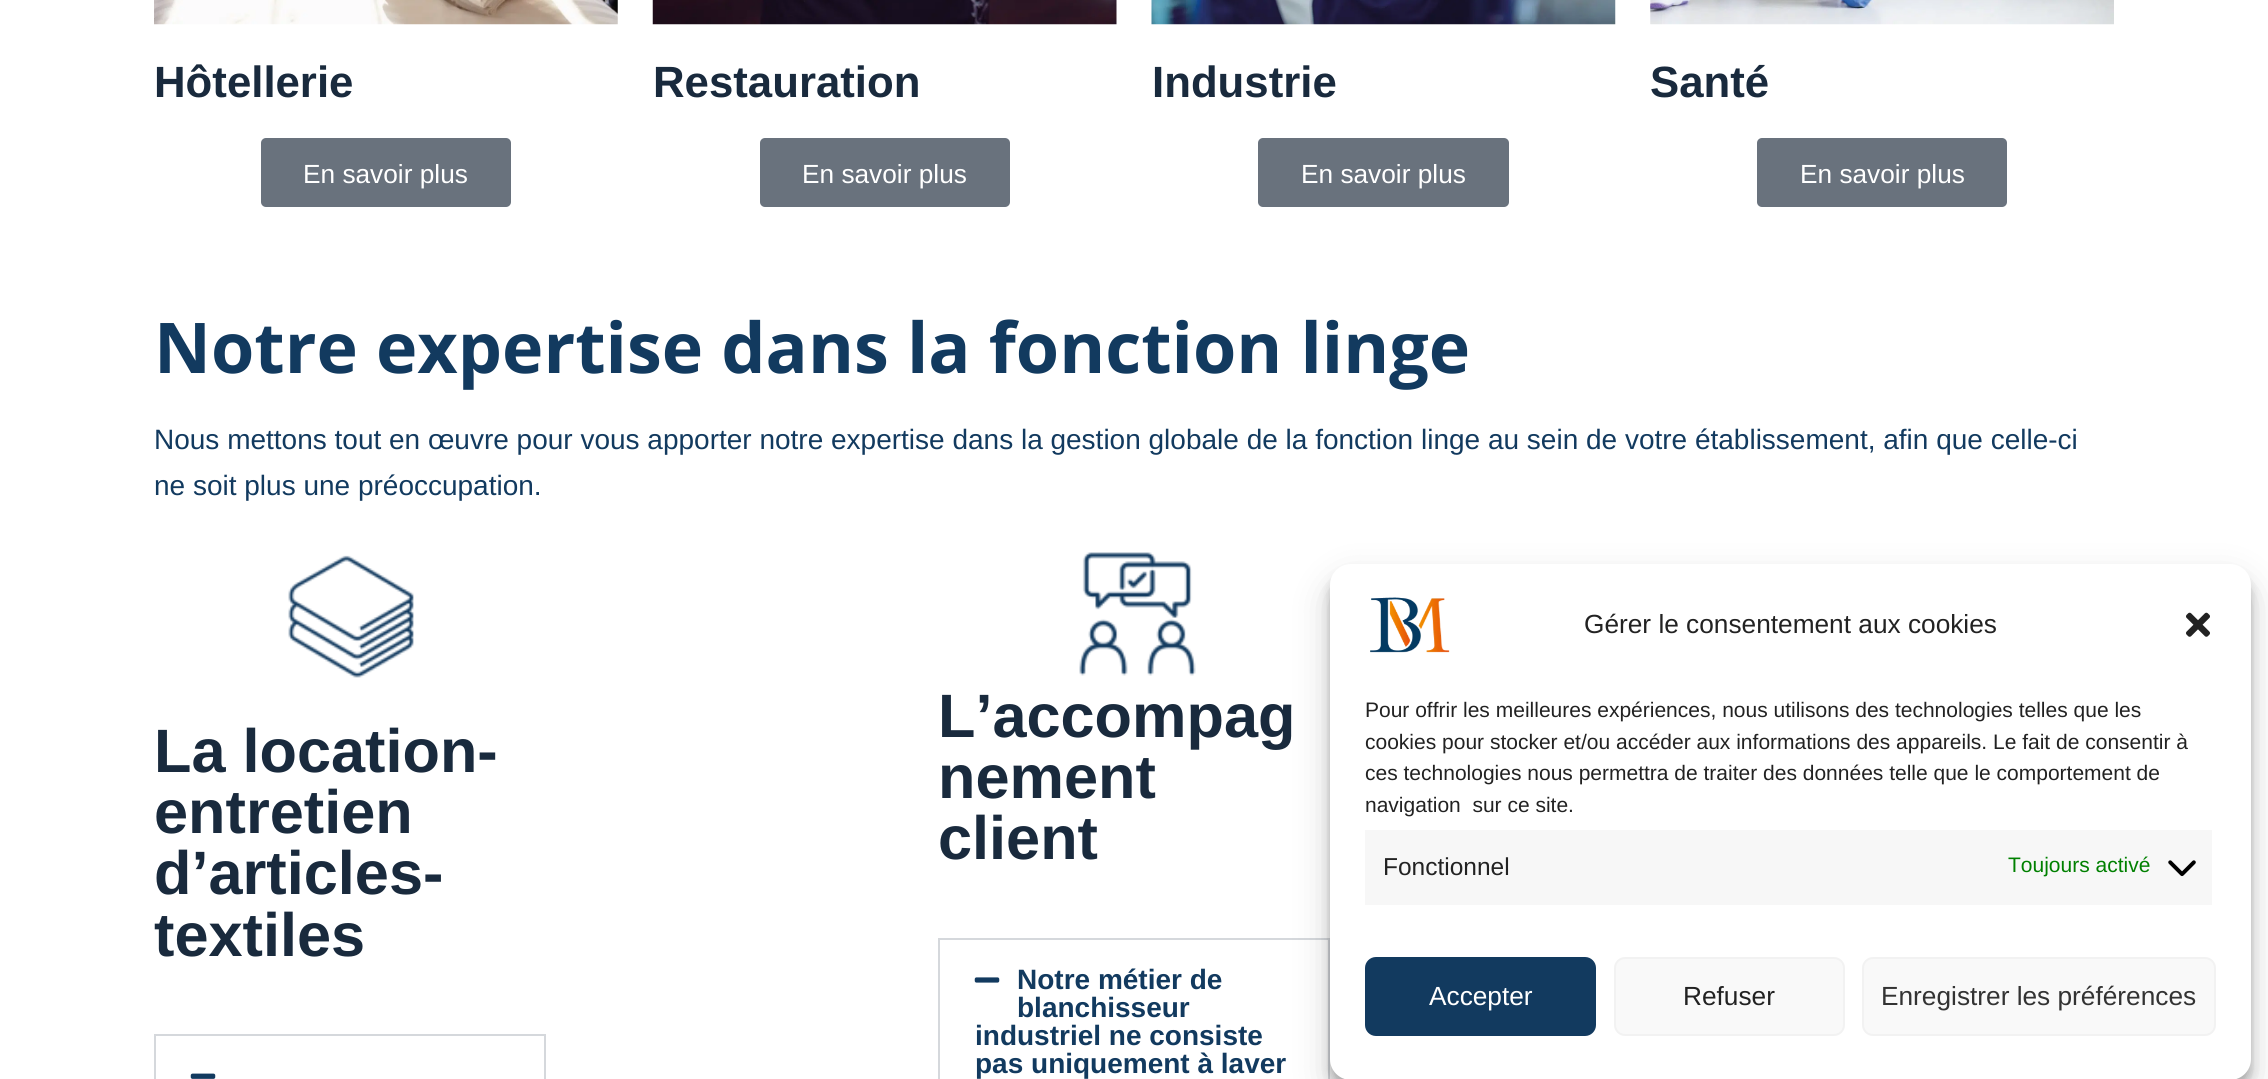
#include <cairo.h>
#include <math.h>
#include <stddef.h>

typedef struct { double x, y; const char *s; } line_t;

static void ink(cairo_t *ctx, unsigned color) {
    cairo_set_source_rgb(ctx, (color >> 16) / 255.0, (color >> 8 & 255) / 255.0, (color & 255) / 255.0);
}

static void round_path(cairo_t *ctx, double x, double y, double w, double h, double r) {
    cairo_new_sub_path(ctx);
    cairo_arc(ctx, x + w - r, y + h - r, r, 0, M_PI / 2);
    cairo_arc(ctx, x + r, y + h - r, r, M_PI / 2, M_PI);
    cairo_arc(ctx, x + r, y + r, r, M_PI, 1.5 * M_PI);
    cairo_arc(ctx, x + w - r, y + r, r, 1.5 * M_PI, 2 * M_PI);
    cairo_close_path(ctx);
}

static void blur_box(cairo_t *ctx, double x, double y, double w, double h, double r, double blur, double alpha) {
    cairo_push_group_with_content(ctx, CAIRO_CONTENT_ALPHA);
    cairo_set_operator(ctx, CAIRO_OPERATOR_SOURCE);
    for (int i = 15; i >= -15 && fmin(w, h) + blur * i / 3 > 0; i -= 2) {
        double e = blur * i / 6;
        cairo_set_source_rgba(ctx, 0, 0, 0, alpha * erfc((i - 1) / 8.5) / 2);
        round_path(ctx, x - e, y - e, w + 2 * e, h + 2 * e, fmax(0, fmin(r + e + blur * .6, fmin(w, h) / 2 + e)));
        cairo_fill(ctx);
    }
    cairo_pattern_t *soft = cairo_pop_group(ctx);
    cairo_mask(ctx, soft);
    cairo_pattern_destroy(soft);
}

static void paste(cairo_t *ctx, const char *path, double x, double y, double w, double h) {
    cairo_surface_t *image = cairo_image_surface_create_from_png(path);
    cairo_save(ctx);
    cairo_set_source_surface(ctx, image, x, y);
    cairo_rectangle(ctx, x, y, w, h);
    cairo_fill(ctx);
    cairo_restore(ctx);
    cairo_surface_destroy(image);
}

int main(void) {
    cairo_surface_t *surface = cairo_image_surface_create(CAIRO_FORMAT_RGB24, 2268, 1079);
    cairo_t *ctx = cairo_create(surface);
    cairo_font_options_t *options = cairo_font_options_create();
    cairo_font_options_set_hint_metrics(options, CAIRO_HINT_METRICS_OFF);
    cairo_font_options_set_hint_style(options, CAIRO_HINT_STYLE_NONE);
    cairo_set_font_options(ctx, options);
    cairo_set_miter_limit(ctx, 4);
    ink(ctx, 0xFFFFFF);
    cairo_paint(ctx);
    paste(ctx, "media/1.png", 154, 0, 464, 25);
    cairo_select_font_face(ctx, "Liberation Sans", CAIRO_FONT_SLANT_NORMAL, CAIRO_FONT_WEIGHT_BOLD);
    cairo_set_font_size(ctx, 43.75);
    ink(ctx, 0x192A3D);
    cairo_move_to(ctx, 154, 97);
    cairo_show_text(ctx, "Hôtellerie");
    ink(ctx, 0x69727D);
    round_path(ctx, 261, 138, 250, 69, 5);
    cairo_fill(ctx);
    cairo_select_font_face(ctx, "Liberation Sans", CAIRO_FONT_SLANT_NORMAL, CAIRO_FONT_WEIGHT_NORMAL);
    cairo_set_font_size(ctx, 26.25);
    ink(ctx, 0xFFFFFF);
    cairo_move_to(ctx, 303, 183);
    cairo_show_text(ctx, "En savoir plus");
    paste(ctx, "media/2.png", 652, 0, 465, 25);
    cairo_select_font_face(ctx, "Liberation Sans", CAIRO_FONT_SLANT_NORMAL, CAIRO_FONT_WEIGHT_BOLD);
    cairo_set_font_size(ctx, 43.75);
    ink(ctx, 0x192A3D);
    cairo_move_to(ctx, 653, 97);
    cairo_show_text(ctx, "Restauration");
    ink(ctx, 0x69727D);
    round_path(ctx, 760, 138, 250, 69, 5);
    cairo_fill(ctx);
    cairo_select_font_face(ctx, "Liberation Sans", CAIRO_FONT_SLANT_NORMAL, CAIRO_FONT_WEIGHT_NORMAL);
    cairo_set_font_size(ctx, 26.25);
    ink(ctx, 0xFFFFFF);
    cairo_move_to(ctx, 802, 183);
    cairo_show_text(ctx, "En savoir plus");
    paste(ctx, "media/3.png", 1151, 0, 465, 25);
    cairo_select_font_face(ctx, "Liberation Sans", CAIRO_FONT_SLANT_NORMAL, CAIRO_FONT_WEIGHT_BOLD);
    cairo_set_font_size(ctx, 43.75);
    ink(ctx, 0x192A3D);
    cairo_move_to(ctx, 1152, 97);
    cairo_show_text(ctx, "Industrie");
    ink(ctx, 0x69727D);
    round_path(ctx, 1258, 138, 251, 69, 5);
    cairo_fill(ctx);
    cairo_select_font_face(ctx, "Liberation Sans", CAIRO_FONT_SLANT_NORMAL, CAIRO_FONT_WEIGHT_NORMAL);
    cairo_set_font_size(ctx, 26.25);
    ink(ctx, 0xFFFFFF);
    cairo_move_to(ctx, 1301, 183);
    cairo_show_text(ctx, "En savoir plus");
    paste(ctx, "media/4.png", 1650, 0, 464, 25);
    cairo_select_font_face(ctx, "Liberation Sans", CAIRO_FONT_SLANT_NORMAL, CAIRO_FONT_WEIGHT_BOLD);
    cairo_set_font_size(ctx, 43.75);
    ink(ctx, 0x192A3D);
    cairo_move_to(ctx, 1650, 97);
    cairo_show_text(ctx, "Santé");
    ink(ctx, 0x69727D);
    round_path(ctx, 1757, 138, 250, 69, 5);
    cairo_fill(ctx);
    cairo_select_font_face(ctx, "Liberation Sans", CAIRO_FONT_SLANT_NORMAL, CAIRO_FONT_WEIGHT_NORMAL);
    cairo_set_font_size(ctx, 26.25);
    ink(ctx, 0xFFFFFF);
    cairo_move_to(ctx, 1800, 183);
    cairo_show_text(ctx, "En savoir plus");
    cairo_select_font_face(ctx, "Open Sans", CAIRO_FONT_SLANT_NORMAL, CAIRO_FONT_WEIGHT_BOLD);
    cairo_set_font_size(ctx, 70);
    ink(ctx, 0x123A5F);
    cairo_move_to(ctx, 154, 373);
    cairo_show_text(ctx, "Notre expertise dans la fonction linge");
    cairo_select_font_face(ctx, "Liberation Sans", CAIRO_FONT_SLANT_NORMAL, CAIRO_FONT_WEIGHT_NORMAL);
    cairo_set_font_size(ctx, 28);
    cairo_move_to(ctx, 154, 449);
    cairo_show_text(ctx, "Nous mettons tout en œuvre pour vous apporter notre expertise dans la gestion globale de la fonction linge au sein de votre établissement, afin que celle-ci");
    cairo_move_to(ctx, 154, 495);
    cairo_show_text(ctx, "ne soit plus une préoccupation.");
    paste(ctx, "media/5.png", 288, 555, 126, 123);
    cairo_select_font_face(ctx, "Liberation Sans", CAIRO_FONT_SLANT_NORMAL, CAIRO_FONT_WEIGHT_BOLD);
    cairo_set_font_size(ctx, 61.25);
    ink(ctx, 0x192A3D);
    {
        static const line_t items[] = {
            {154, 772, "La location-"},
            {154, 833, "entretien"},
            {154, 894, "d’articles-"},
            {154, 956, "textiles"},
        };
        for (size_t i = 0; i < sizeof items / sizeof *items; i++) {
            cairo_move_to(ctx, items[i].x, items[i].y);
            cairo_show_text(ctx, items[i].s);
        }
    }
    cairo_rectangle(ctx, 155, 1035, 390, 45);
    ink(ctx, 0xD5D8DC);
    cairo_stroke(ctx);
    paste(ctx, "media/6.png", 190, 1073, 26, 6);
    paste(ctx, "media/7.png", 1079, 552, 117, 124);
    ink(ctx, 0x192A3D);
    {
        static const line_t items[] = {
            {938, 737, "L’accompag"},
            {938, 798, "nement"},
            {938, 859, "client"},
        };
        for (size_t i = 0; i < sizeof items / sizeof *items; i++) {
            cairo_move_to(ctx, items[i].x, items[i].y);
            cairo_show_text(ctx, items[i].s);
        }
    }
    cairo_rectangle(ctx, 939, 939, 390, 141);
    ink(ctx, 0xD5D8DC);
    cairo_stroke(ctx);
    paste(ctx, "media/8.png", 974, 977, 26, 6);
    cairo_set_font_size(ctx, 28);
    ink(ctx, 0x123A5F);
    {
        static const line_t items[] = {
            {1017, 989, "Notre métier de"},
            {1017, 1017, "blanchisseur"},
            {975, 1045, "industriel ne consiste"},
            {975, 1073, "pas uniquement à laver"},
        };
        for (size_t i = 0; i < sizeof items / sizeof *items; i++) {
            cairo_move_to(ctx, items[i].x, items[i].y);
            cairo_show_text(ctx, items[i].s);
        }
    }
    ink(ctx, 0x000000);
    blur_box(ctx, 1330, 574, 921, 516, 21, 5, 0.23);
    blur_box(ctx, 1330, 581, 921, 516, 21, 17.5, 0.19);
    ink(ctx, 0xFFFFFF);
    round_path(ctx, 1330, 564, 921, 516, 21);
    cairo_fill(ctx);
    paste(ctx, "media/9.png", 1370, 597, 80, 56);
    cairo_select_font_face(ctx, "Liberation Sans", CAIRO_FONT_SLANT_NORMAL, CAIRO_FONT_WEIGHT_NORMAL);
    cairo_set_font_size(ctx, 26.25);
    ink(ctx, 0x222222);
    cairo_move_to(ctx, 1584, 633);
    cairo_show_text(ctx, "Gérer le consentement aux cookies");
    paste(ctx, "media/10.png", 2186, 612, 24, 25);
    cairo_set_font_size(ctx, 21);
    {
        static const line_t items[] = {
            {1365, 717, "Pour offrir les meilleures expériences, nous utilisons des technologies telles que les"},
            {1365, 749, "cookies pour stocker et/ou accéder aux informations des appareils. Le fait de consentir à"},
            {1365, 780, "ces technologies nous permettra de traiter des données telle que le comportement de"},
            {1365, 812, "navigation  sur ce site."},
        };
        for (size_t i = 0; i < sizeof items / sizeof *items; i++) {
            cairo_move_to(ctx, items[i].x, items[i].y);
            cairo_show_text(ctx, items[i].s);
        }
    }
    ink(ctx, 0xF7F7F7);
    cairo_rectangle(ctx, 1365, 830, 847, 75);
    cairo_fill(ctx);
    cairo_set_font_size(ctx, 24.5);
    ink(ctx, 0x222222);
    cairo_move_to(ctx, 1383, 875);
    cairo_show_text(ctx, "Fonctionnel");
    cairo_set_font_size(ctx, 21);
    ink(ctx, 0x008000);
    cairo_move_to(ctx, 2008, 872);
    cairo_show_text(ctx, "Toujours activé");
    paste(ctx, "media/11.png", 2168, 860, 28, 17);
    ink(ctx, 0x123A5F);
    round_path(ctx, 1366, 958, 229, 77, 10);
    cairo_fill_preserve(ctx);
    cairo_stroke(ctx);
    cairo_set_font_size(ctx, 26.25);
    ink(ctx, 0xFFFFFF);
    cairo_move_to(ctx, 1429, 1005);
    cairo_show_text(ctx, "Accepter");
    ink(ctx, 0xF9F9F9);
    round_path(ctx, 1615, 958, 229, 77, 10);
    cairo_fill_preserve(ctx);
    ink(ctx, 0xF2F2F2);
    cairo_stroke(ctx);
    ink(ctx, 0x222222);
    cairo_move_to(ctx, 1683, 1005);
    cairo_show_text(ctx, "Refuser");
    ink(ctx, 0xF9F9F9);
    round_path(ctx, 1863, 958, 352, 77, 10);
    cairo_fill_preserve(ctx);
    ink(ctx, 0xF2F2F2);
    cairo_stroke(ctx);
    ink(ctx, 0x333333);
    cairo_move_to(ctx, 1881, 1005);
    cairo_show_text(ctx, "Enregistrer les préférences");
    cairo_surface_write_to_png(surface, "image.png");
    cairo_font_options_destroy(options);
    cairo_destroy(ctx);
    cairo_surface_destroy(surface);
    return 0;
}
